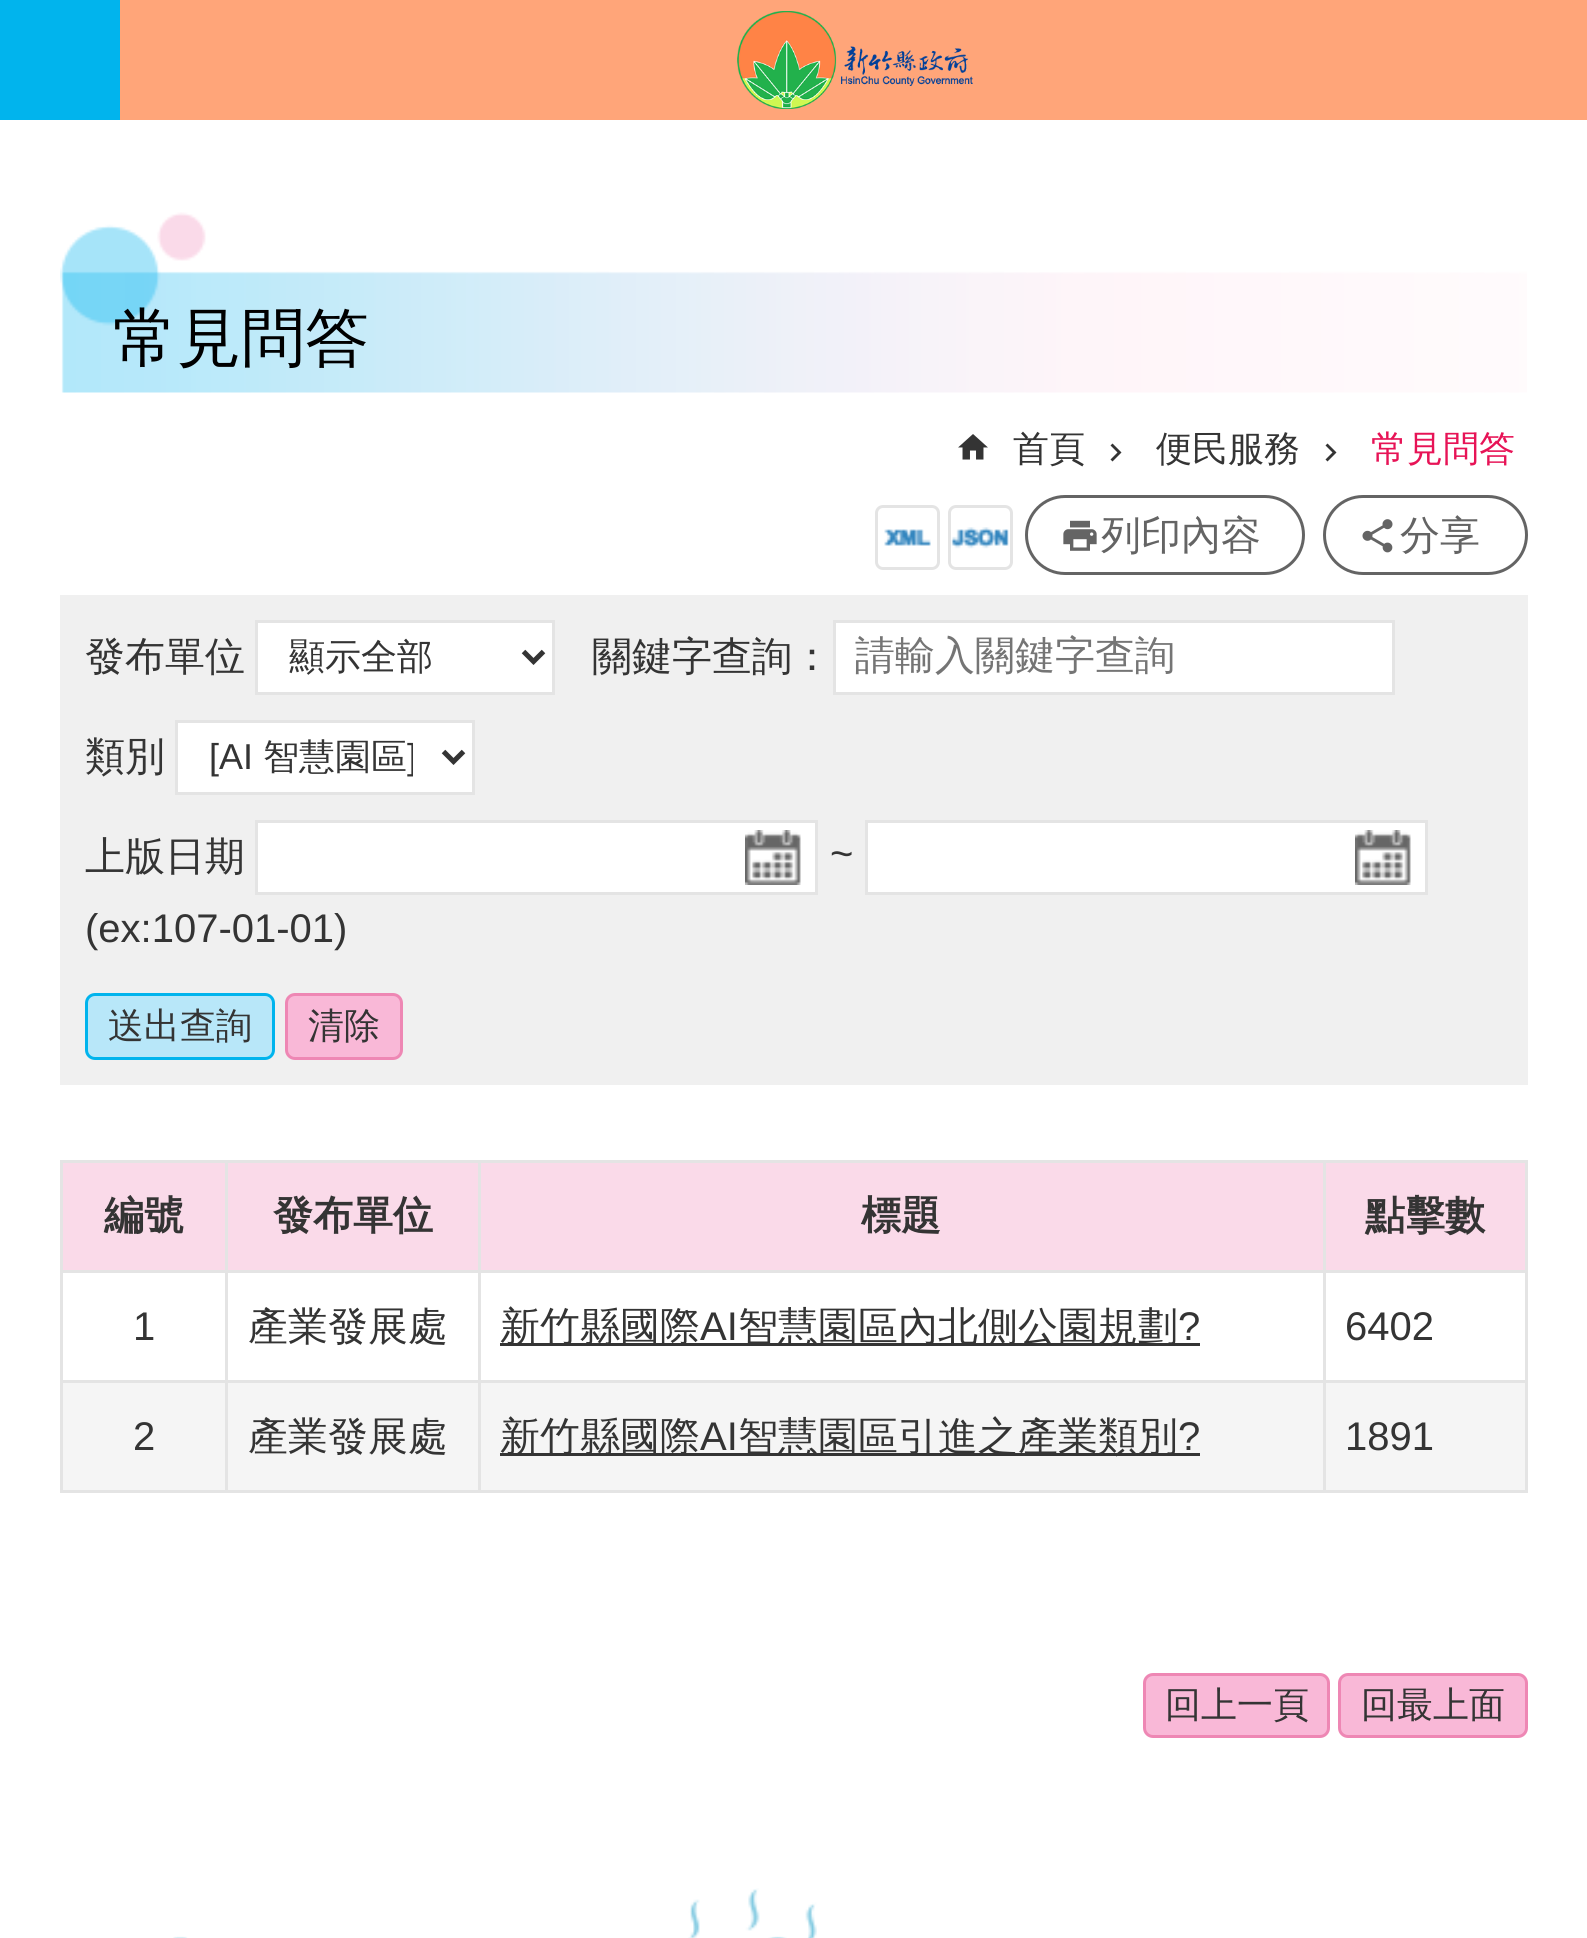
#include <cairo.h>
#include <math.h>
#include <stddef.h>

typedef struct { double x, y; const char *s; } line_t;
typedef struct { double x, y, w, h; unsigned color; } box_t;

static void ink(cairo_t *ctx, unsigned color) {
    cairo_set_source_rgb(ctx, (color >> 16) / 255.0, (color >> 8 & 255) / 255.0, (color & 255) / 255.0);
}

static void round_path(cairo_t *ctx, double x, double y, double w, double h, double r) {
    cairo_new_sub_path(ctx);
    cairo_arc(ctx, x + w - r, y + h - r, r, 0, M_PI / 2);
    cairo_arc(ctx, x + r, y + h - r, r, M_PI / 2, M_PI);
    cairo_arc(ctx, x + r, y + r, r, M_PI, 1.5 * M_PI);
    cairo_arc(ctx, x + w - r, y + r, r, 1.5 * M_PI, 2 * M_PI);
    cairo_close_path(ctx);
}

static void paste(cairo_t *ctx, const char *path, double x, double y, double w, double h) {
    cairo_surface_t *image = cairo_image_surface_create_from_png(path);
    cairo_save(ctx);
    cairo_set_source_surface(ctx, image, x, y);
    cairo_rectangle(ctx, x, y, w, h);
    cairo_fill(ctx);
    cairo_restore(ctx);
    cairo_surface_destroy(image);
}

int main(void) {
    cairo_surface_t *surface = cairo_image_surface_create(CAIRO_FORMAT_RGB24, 1587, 1938);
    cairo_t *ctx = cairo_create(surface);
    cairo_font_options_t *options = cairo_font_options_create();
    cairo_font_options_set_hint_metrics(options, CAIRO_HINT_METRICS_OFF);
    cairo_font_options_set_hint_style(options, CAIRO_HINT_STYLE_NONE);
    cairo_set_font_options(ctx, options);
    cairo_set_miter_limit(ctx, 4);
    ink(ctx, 0xFFFFFF);
    cairo_paint(ctx);
    ink(ctx, 0x01B4ED);
    cairo_rectangle(ctx, 0, 0, 120, 120);
    cairo_fill(ctx);
    ink(ctx, 0xFFA579);
    cairo_rectangle(ctx, 120, 0, 1467, 120);
    cairo_fill(ctx);
    paste(ctx, "media/1.png", 737, 11, 236, 98);
    paste(ctx, "media/2.png", 60, 212, 1467, 181);
    cairo_select_font_face(ctx, "WenQuanYi Zen Hei Medium", CAIRO_FONT_SLANT_NORMAL, CAIRO_FONT_WEIGHT_NORMAL);
    cairo_set_font_size(ctx, 64);
    ink(ctx, 0x000000);
    cairo_move_to(ctx, 113, 360);
    cairo_show_text(ctx, "常見問答");
    paste(ctx, "media/3.png", 958, 434, 30, 26);
    cairo_set_font_size(ctx, 36);
    ink(ctx, 0x343434);
    cairo_move_to(ctx, 1013, 461);
    cairo_show_text(ctx, "首頁");
    cairo_new_path(ctx);
    cairo_move_to(ctx, 1112.5, 443.5);
    cairo_line_to(ctx, 1121.5, 452.5);
    cairo_line_to(ctx, 1112.5, 461.5);
    cairo_line_to(ctx, 1110.5, 459.5);
    cairo_line_to(ctx, 1117.5, 452.5);
    cairo_line_to(ctx, 1110.5, 445.5);
    cairo_close_path(ctx);
    cairo_fill(ctx);
    cairo_move_to(ctx, 1156, 461);
    cairo_show_text(ctx, "便民服務");
    cairo_new_path(ctx);
    cairo_move_to(ctx, 1327.5, 443.5);
    cairo_line_to(ctx, 1336.5, 452.5);
    cairo_line_to(ctx, 1327.5, 461.5);
    cairo_line_to(ctx, 1325.5, 459.5);
    cairo_line_to(ctx, 1332.5, 452.5);
    cairo_line_to(ctx, 1325.5, 445.5);
    cairo_close_path(ctx);
    cairo_fill(ctx);
    ink(ctx, 0xE71356);
    cairo_move_to(ctx, 1371, 461);
    cairo_show_text(ctx, "常見問答");
    paste(ctx, "media/4.png", 884, 529, 47, 17);
    round_path(ctx, 876.5, 506.5, 62, 62, 6.5);
    ink(ctx, 0xE4E4E4);
    cairo_set_line_width(ctx, 3);
    cairo_stroke(ctx);
    paste(ctx, "media/5.png", 951, 527, 58, 22);
    round_path(ctx, 949.5, 506.5, 62, 62, 6.5);
    cairo_stroke(ctx);
    round_path(ctx, 1026.5, 496.5, 277, 77, 38.5);
    ink(ctx, 0x646464);
    cairo_stroke(ctx);
    paste(ctx, "media/6.png", 1063, 520, 34, 31);
    cairo_set_font_size(ctx, 40);
    cairo_move_to(ctx, 1101, 549);
    cairo_show_text(ctx, "列印內容");
    round_path(ctx, 1324.5, 496.5, 202, 77, 38.5);
    cairo_stroke(ctx);
    paste(ctx, "media/7.png", 1362, 519, 31, 34);
    cairo_move_to(ctx, 1400, 549);
    cairo_show_text(ctx, "分享");
    ink(ctx, 0xF0F0F0);
    cairo_rectangle(ctx, 60, 595, 1468, 490);
    cairo_fill(ctx);
    ink(ctx, 0x343434);
    cairo_move_to(ctx, 85, 670);
    cairo_show_text(ctx, "發布單位");
    ink(ctx, 0xFFFFFF);
    cairo_rectangle(ctx, 256.5, 621.5, 297, 72);
    cairo_fill_preserve(ctx);
    ink(ctx, 0xE4E4E4);
    cairo_stroke(ctx);
    cairo_new_path(ctx);
    cairo_move_to(ctx, 523.5, 651.5);
    cairo_line_to(ctx, 533.5, 661.5);
    cairo_line_to(ctx, 543.5, 651.5);
    ink(ctx, 0x343434);
    cairo_set_line_width(ctx, 5);
    cairo_stroke(ctx);
    cairo_set_font_size(ctx, 36);
    cairo_move_to(ctx, 289, 669);
    cairo_show_text(ctx, "顯示全部");
    cairo_set_font_size(ctx, 40);
    cairo_move_to(ctx, 592, 670);
    cairo_show_text(ctx, "關鍵字查詢：");
    ink(ctx, 0xFFFFFF);
    cairo_rectangle(ctx, 834.5, 621.5, 559, 72);
    cairo_fill_preserve(ctx);
    ink(ctx, 0xE4E4E4);
    cairo_set_line_width(ctx, 3);
    cairo_stroke(ctx);
    ink(ctx, 0x757575);
    cairo_move_to(ctx, 855, 669);
    cairo_show_text(ctx, "請輸入關鍵字查詢");
    ink(ctx, 0x343434);
    cairo_move_to(ctx, 85, 770);
    cairo_show_text(ctx, "類別");
    ink(ctx, 0xFFFFFF);
    cairo_rectangle(ctx, 176.5, 721.5, 297, 72);
    cairo_fill_preserve(ctx);
    ink(ctx, 0xE4E4E4);
    cairo_stroke(ctx);
    cairo_new_path(ctx);
    cairo_move_to(ctx, 443.5, 751.5);
    cairo_line_to(ctx, 453.5, 761.5);
    cairo_line_to(ctx, 463.5, 751.5);
    ink(ctx, 0x343434);
    cairo_set_line_width(ctx, 5);
    cairo_stroke(ctx);
    cairo_select_font_face(ctx, "Liberation Sans", CAIRO_FONT_SLANT_NORMAL, CAIRO_FONT_WEIGHT_NORMAL);
    cairo_set_font_size(ctx, 36);
    cairo_move_to(ctx, 209, 769);
    cairo_show_text(ctx, "[AI");
    cairo_select_font_face(ctx, "WenQuanYi Zen Hei Medium", CAIRO_FONT_SLANT_NORMAL, CAIRO_FONT_WEIGHT_NORMAL);
    cairo_move_to(ctx, 263, 769);
    cairo_show_text(ctx, "智慧園區");
    cairo_save(ctx);
    cairo_rectangle(ctx, 208, 735, 205, 45);
    cairo_clip(ctx);
    cairo_select_font_face(ctx, "Liberation Sans", CAIRO_FONT_SLANT_NORMAL, CAIRO_FONT_WEIGHT_NORMAL);
    cairo_move_to(ctx, 407, 769);
    cairo_show_text(ctx, "]");
    cairo_restore(ctx);
    cairo_set_font_size(ctx, 40);
    cairo_move_to(ctx, 85, 870);
    cairo_show_text(ctx, "上版日期");
    ink(ctx, 0xFFFFFF);
    cairo_rectangle(ctx, 258, 823, 557, 69);
    cairo_fill(ctx);
    paste(ctx, "media/8.png", 745, 830, 56, 55);
    cairo_rectangle(ctx, 256.5, 821.5, 560, 72);
    ink(ctx, 0xE4E4E4);
    cairo_set_line_width(ctx, 3);
    cairo_stroke(ctx);
    cairo_select_font_face(ctx, "Liberation Sans", CAIRO_FONT_SLANT_NORMAL, CAIRO_FONT_WEIGHT_NORMAL);
    ink(ctx, 0x343434);
    cairo_move_to(ctx, 830, 867);
    cairo_show_text(ctx, "~");
    ink(ctx, 0xFFFFFF);
    cairo_rectangle(ctx, 868, 823, 557, 69);
    cairo_fill(ctx);
    paste(ctx, "media/9.png", 1355, 830, 56, 55);
    cairo_rectangle(ctx, 866.5, 821.5, 560, 72);
    ink(ctx, 0xE4E4E4);
    cairo_stroke(ctx);
    ink(ctx, 0x343434);
    cairo_move_to(ctx, 85, 942);
    cairo_show_text(ctx, "(ex:107-01-01)");
    ink(ctx, 0xB8E7F9);
    round_path(ctx, 86.5, 994.5, 187, 64, 8.5);
    cairo_fill_preserve(ctx);
    ink(ctx, 0x01B4ED);
    cairo_stroke(ctx);
    cairo_select_font_face(ctx, "WenQuanYi Zen Hei Medium", CAIRO_FONT_SLANT_NORMAL, CAIRO_FONT_WEIGHT_NORMAL);
    cairo_set_font_size(ctx, 36);
    ink(ctx, 0x343434);
    cairo_move_to(ctx, 108, 1038);
    cairo_show_text(ctx, "送出查詢");
    ink(ctx, 0xF9B8D7);
    round_path(ctx, 286.5, 994.5, 115, 64, 8.5);
    cairo_fill_preserve(ctx);
    ink(ctx, 0xEE87B4);
    cairo_stroke(ctx);
    ink(ctx, 0x343434);
    cairo_move_to(ctx, 308, 1038);
    cairo_show_text(ctx, "清除");
    {
        static const box_t items[] = {
            {63, 1163, 162, 107, 0xFADAE9},
            {1323, 1160, 205, 3, 0xE4E4E4},
            {1323, 1270, 205, 3, 0xE4E4E4},
            {1323, 1380, 205, 3, 0xE4E4E4},
            {63, 1383, 1462, 107, 0xF5F5F5},
            {1525, 1380, 3, 113, 0xE4E4E4},
            {1323, 1490, 205, 3, 0xE4E4E4},
            {1323, 1380, 3, 113, 0xE4E4E4},
            {478, 1380, 847, 3, 0xE4E4E4},
            {1323, 1270, 3, 113, 0xE4E4E4},
            {478, 1270, 847, 3, 0xE4E4E4},
            {1323, 1160, 3, 113, 0xE4E4E4},
            {478, 1160, 847, 3, 0xE4E4E4},
            {478, 1490, 847, 3, 0xE4E4E4},
            {478, 1380, 3, 113, 0xE4E4E4},
            {225, 1380, 255, 3, 0xE4E4E4},
            {478, 1270, 3, 113, 0xE4E4E4},
            {225, 1270, 255, 3, 0xE4E4E4},
            {478, 1160, 3, 113, 0xE4E4E4},
            {225, 1160, 255, 3, 0xE4E4E4},
            {225, 1490, 255, 3, 0xE4E4E4},
            {225, 1380, 3, 113, 0xE4E4E4},
            {60, 1380, 168, 3, 0xE4E4E4},
            {225, 1270, 3, 113, 0xE4E4E4},
            {60, 1270, 168, 3, 0xE4E4E4},
            {225, 1160, 3, 113, 0xE4E4E4},
            {60, 1160, 168, 3, 0xE4E4E4},
            {60, 1490, 168, 3, 0xE4E4E4},
            {60, 1380, 3, 113, 0xE4E4E4},
            {60, 1270, 3, 113, 0xE4E4E4},
            {60, 1160, 3, 113, 0xE4E4E4},
        };
        for (size_t i = 0; i < sizeof items / sizeof *items; i++) {
            ink(ctx, items[i].color);
            cairo_rectangle(ctx, items[i].x, items[i].y, items[i].w, items[i].h);
            cairo_fill(ctx);
        }
    }
    cairo_select_font_face(ctx, "WenQuanYi Zen Hei", CAIRO_FONT_SLANT_NORMAL, CAIRO_FONT_WEIGHT_BOLD);
    cairo_set_font_size(ctx, 40);
    ink(ctx, 0x343434);
    cairo_move_to(ctx, 104, 1229);
    cairo_show_text(ctx, "編號");
    ink(ctx, 0xFADAE9);
    cairo_rectangle(ctx, 228, 1163, 250, 107);
    cairo_fill(ctx);
    ink(ctx, 0x343434);
    cairo_move_to(ctx, 273, 1229);
    cairo_show_text(ctx, "發布單位");
    ink(ctx, 0xFADAE9);
    cairo_rectangle(ctx, 481, 1163, 842, 107);
    cairo_fill(ctx);
    ink(ctx, 0x343434);
    cairo_move_to(ctx, 861, 1229);
    cairo_show_text(ctx, "標題");
    {
        static const box_t items[] = {
            {1326, 1163, 199, 107, 0xFADAE9},
            {1525, 1270, 3, 113, 0xE4E4E4},
            {1525, 1160, 3, 113, 0xE4E4E4},
        };
        for (size_t i = 0; i < sizeof items / sizeof *items; i++) {
            ink(ctx, items[i].color);
            cairo_rectangle(ctx, items[i].x, items[i].y, items[i].w, items[i].h);
            cairo_fill(ctx);
        }
    }
    ink(ctx, 0x343434);
    cairo_move_to(ctx, 1365, 1229);
    cairo_show_text(ctx, "點擊數");
    cairo_select_font_face(ctx, "Liberation Sans", CAIRO_FONT_SLANT_NORMAL, CAIRO_FONT_WEIGHT_NORMAL);
    cairo_move_to(ctx, 133, 1340);
    cairo_show_text(ctx, "1");
    cairo_select_font_face(ctx, "WenQuanYi Zen Hei Medium", CAIRO_FONT_SLANT_NORMAL, CAIRO_FONT_WEIGHT_NORMAL);
    cairo_move_to(ctx, 248, 1340);
    cairo_show_text(ctx, "產業發展處");
    cairo_rectangle(ctx, 500, 1343, 700, 3);
    cairo_fill(ctx);
    cairo_move_to(ctx, 500, 1340);
    cairo_show_text(ctx, "新竹縣國際");
    cairo_select_font_face(ctx, "Liberation Sans", CAIRO_FONT_SLANT_NORMAL, CAIRO_FONT_WEIGHT_NORMAL);
    cairo_move_to(ctx, 700, 1340);
    cairo_show_text(ctx, "AI");
    cairo_select_font_face(ctx, "WenQuanYi Zen Hei Medium", CAIRO_FONT_SLANT_NORMAL, CAIRO_FONT_WEIGHT_NORMAL);
    cairo_move_to(ctx, 738, 1340);
    cairo_show_text(ctx, "智慧園區內北側公園規劃");
    cairo_select_font_face(ctx, "Liberation Sans", CAIRO_FONT_SLANT_NORMAL, CAIRO_FONT_WEIGHT_NORMAL);
    {
        static const line_t items[] = {
            {1178, 1340, "?"},
            {1345, 1340, "6402"},
            {133, 1450, "2"},
        };
        for (size_t i = 0; i < sizeof items / sizeof *items; i++) {
            cairo_move_to(ctx, items[i].x, items[i].y);
            cairo_show_text(ctx, items[i].s);
        }
    }
    cairo_select_font_face(ctx, "WenQuanYi Zen Hei Medium", CAIRO_FONT_SLANT_NORMAL, CAIRO_FONT_WEIGHT_NORMAL);
    cairo_move_to(ctx, 248, 1450);
    cairo_show_text(ctx, "產業發展處");
    cairo_rectangle(ctx, 500, 1453, 700, 3);
    cairo_fill(ctx);
    cairo_move_to(ctx, 500, 1450);
    cairo_show_text(ctx, "新竹縣國際");
    cairo_select_font_face(ctx, "Liberation Sans", CAIRO_FONT_SLANT_NORMAL, CAIRO_FONT_WEIGHT_NORMAL);
    cairo_move_to(ctx, 700, 1450);
    cairo_show_text(ctx, "AI");
    cairo_select_font_face(ctx, "WenQuanYi Zen Hei Medium", CAIRO_FONT_SLANT_NORMAL, CAIRO_FONT_WEIGHT_NORMAL);
    cairo_move_to(ctx, 738, 1450);
    cairo_show_text(ctx, "智慧園區引進之產業類別");
    cairo_select_font_face(ctx, "Liberation Sans", CAIRO_FONT_SLANT_NORMAL, CAIRO_FONT_WEIGHT_NORMAL);
    cairo_move_to(ctx, 1178, 1450);
    cairo_show_text(ctx, "?");
    cairo_move_to(ctx, 1345, 1450);
    cairo_show_text(ctx, "1891");
    ink(ctx, 0xF9B8D7);
    round_path(ctx, 1144.5, 1674.5, 184, 62, 8.5);
    cairo_fill_preserve(ctx);
    ink(ctx, 0xEE87B4);
    cairo_stroke(ctx);
    cairo_select_font_face(ctx, "WenQuanYi Zen Hei Medium", CAIRO_FONT_SLANT_NORMAL, CAIRO_FONT_WEIGHT_NORMAL);
    cairo_set_font_size(ctx, 36);
    ink(ctx, 0x343434);
    cairo_move_to(ctx, 1165, 1717);
    cairo_show_text(ctx, "回上一頁");
    ink(ctx, 0xF9B8D7);
    round_path(ctx, 1339.5, 1674.5, 187, 62, 8.5);
    cairo_fill_preserve(ctx);
    ink(ctx, 0xEE87B4);
    cairo_stroke(ctx);
    ink(ctx, 0x343434);
    cairo_move_to(ctx, 1361, 1717);
    cairo_show_text(ctx, "回最上面");
    paste(ctx, "media/10.png", 173, 1888, 644, 50);
    cairo_surface_write_to_png(surface, "image.png");
    cairo_font_options_destroy(options);
    cairo_destroy(ctx);
    cairo_surface_destroy(surface);
    return 0;
}
